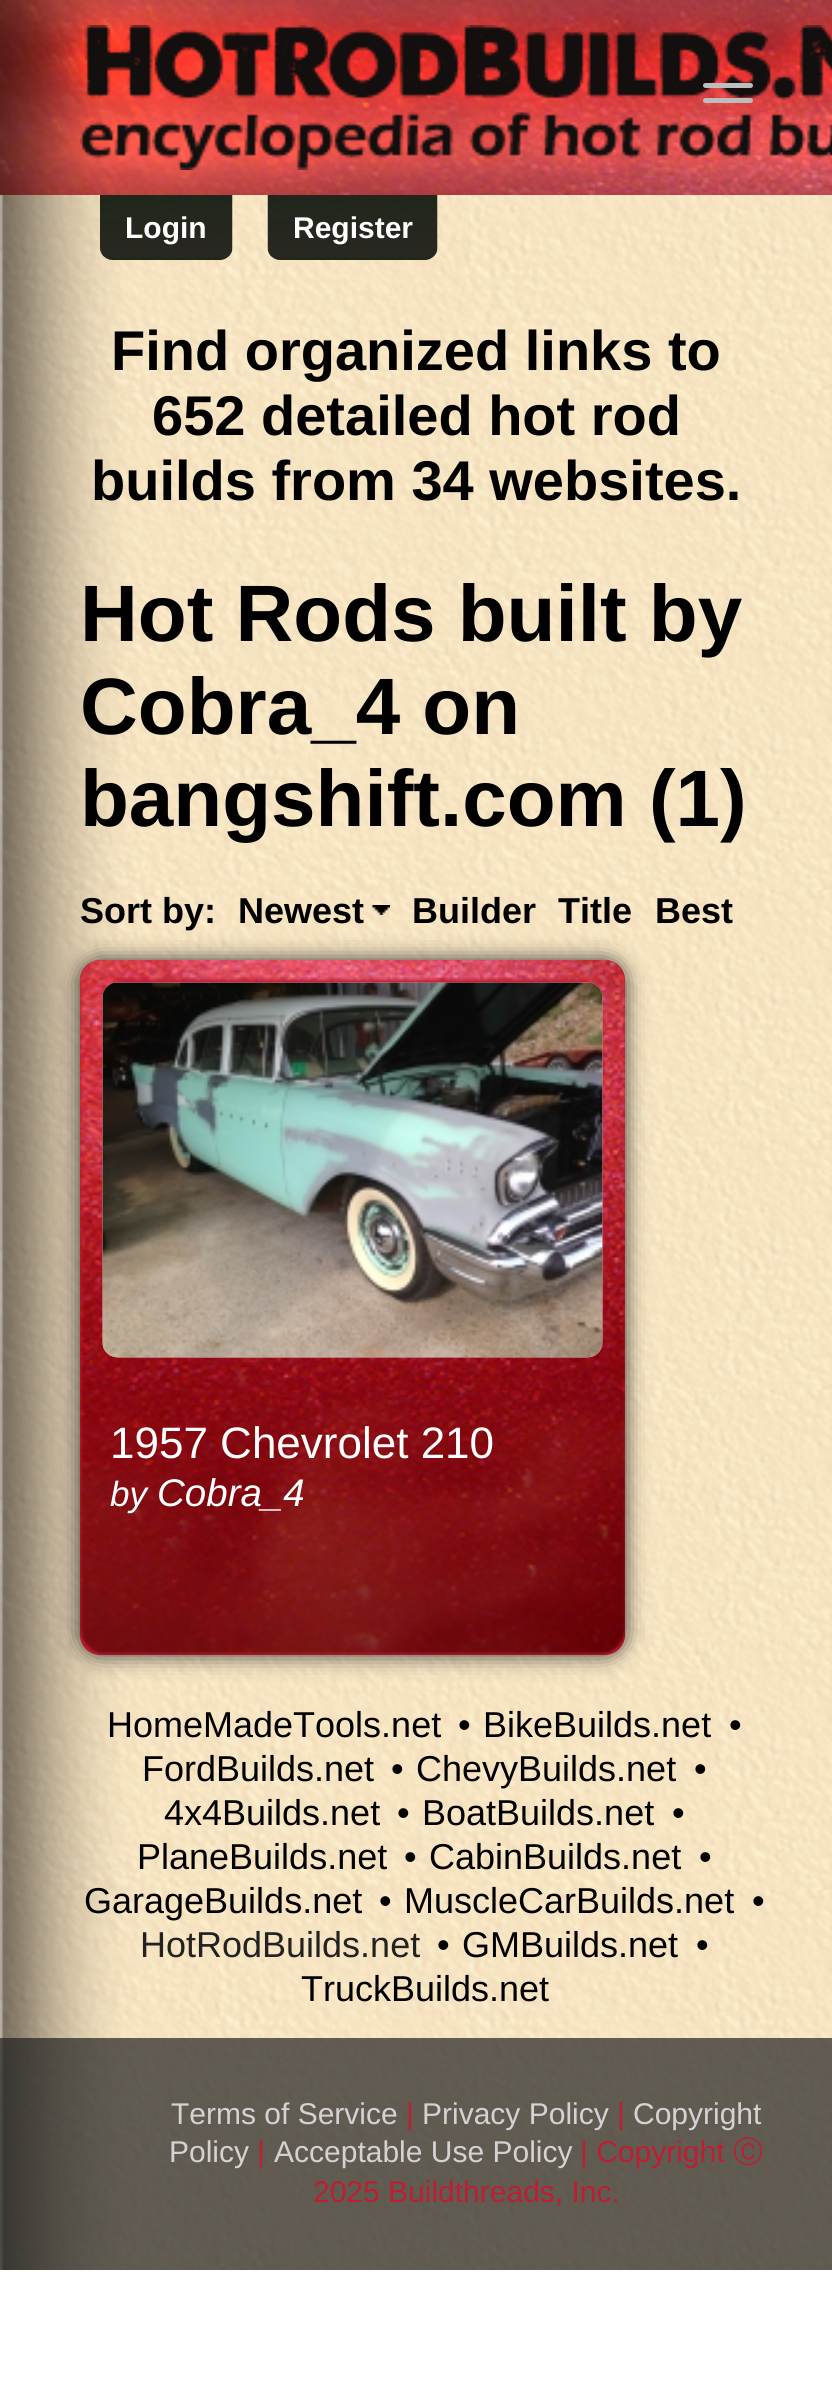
#include <cairo.h>
#include <math.h>
#include <stddef.h>

typedef struct { double x, y; const char *s; } line_t;

static void ink(cairo_t *ctx, unsigned color) {
    cairo_set_source_rgb(ctx, (color >> 16) / 255.0, (color >> 8 & 255) / 255.0, (color & 255) / 255.0);
}

static void round_path(cairo_t *ctx, double x, double y, double w, double h, double r) {
    cairo_new_sub_path(ctx);
    cairo_arc(ctx, x + w - r, y + h - r, r, 0, M_PI / 2);
    cairo_arc(ctx, x + r, y + h - r, r, M_PI / 2, M_PI);
    cairo_arc(ctx, x + r, y + r, r, M_PI, 1.5 * M_PI);
    cairo_arc(ctx, x + w - r, y + r, r, 1.5 * M_PI, 2 * M_PI);
    cairo_close_path(ctx);
}

static void blur_box(cairo_t *ctx, double x, double y, double w, double h, double r, double blur, double alpha) {
    cairo_push_group_with_content(ctx, CAIRO_CONTENT_ALPHA);
    cairo_set_operator(ctx, CAIRO_OPERATOR_SOURCE);
    for (int i = 15; i >= -15 && fmin(w, h) + blur * i / 3 > 0; i -= 2) {
        double e = blur * i / 6;
        cairo_set_source_rgba(ctx, 0, 0, 0, alpha * erfc((i - 1) / 8.5) / 2);
        round_path(ctx, x - e, y - e, w + 2 * e, h + 2 * e, fmax(0, fmin(r + e + blur * .6, fmin(w, h) / 2 + e)));
        cairo_fill(ctx);
    }
    cairo_pattern_t *soft = cairo_pop_group(ctx);
    cairo_mask(ctx, soft);
    cairo_pattern_destroy(soft);
}

static void paste(cairo_t *ctx, const char *path, double x, double y, double w, double h) {
    cairo_surface_t *image = cairo_image_surface_create_from_png(path);
    cairo_save(ctx);
    cairo_set_source_surface(ctx, image, x, y);
    cairo_rectangle(ctx, x, y, w, h);
    cairo_fill(ctx);
    cairo_restore(ctx);
    cairo_surface_destroy(image);
}

int main(void) {
    cairo_surface_t *surface = cairo_image_surface_create(CAIRO_FORMAT_RGB24, 832, 2385);
    cairo_t *ctx = cairo_create(surface);
    cairo_font_options_t *options = cairo_font_options_create();
    cairo_font_options_set_hint_metrics(options, CAIRO_HINT_METRICS_OFF);
    cairo_font_options_set_hint_style(options, CAIRO_HINT_STYLE_NONE);
    cairo_set_font_options(ctx, options);
    cairo_set_miter_limit(ctx, 4);
    ink(ctx, 0xFFFFFF);
    cairo_paint(ctx);
    paste(ctx, "media/1.png", 0, 195, 832, 2075);
    paste(ctx, "media/2.png", 0, 0, 832, 195);
    paste(ctx, "media/3.png", 80, 25, 752, 145);
    ink(ctx, 0xBDBDBD);
    round_path(ctx, 703, 83, 50, 5, 2.5);
    cairo_fill(ctx);
    round_path(ctx, 703, 98, 50, 5, 2.5);
    cairo_fill(ctx);
    paste(ctx, "media/4.png", 100, 195, 133, 65);
    cairo_select_font_face(ctx, "Liberation Sans", CAIRO_FONT_SLANT_NORMAL, CAIRO_FONT_WEIGHT_BOLD);
    cairo_set_font_size(ctx, 30);
    ink(ctx, 0xFFFFFF);
    cairo_move_to(ctx, 125, 238);
    cairo_show_text(ctx, "Login");
    paste(ctx, "media/5.png", 267, 195, 171, 65);
    cairo_move_to(ctx, 293, 238);
    cairo_show_text(ctx, "Register");
    cairo_set_font_size(ctx, 56);
    ink(ctx, 0x010101);
    {
        static const line_t items[] = {
            {111, 370, "Find organized links to"},
            {152, 435, "652 detailed hot rod"},
            {91, 500, "builds from 34 websites."},
        };
        for (size_t i = 0; i < sizeof items / sizeof *items; i++) {
            cairo_move_to(ctx, items[i].x, items[i].y);
            cairo_show_text(ctx, items[i].s);
        }
    }
    cairo_set_font_size(ctx, 80);
    {
        static const line_t items[] = {
            {80, 641, "Hot Rods built by"},
            {80, 734, "Cobra_4 on"},
            {80, 826, "bangshift.com (1)"},
        };
        for (size_t i = 0; i < sizeof items / sizeof *items; i++) {
            cairo_move_to(ctx, items[i].x, items[i].y);
            cairo_show_text(ctx, items[i].s);
        }
    }
    cairo_set_font_size(ctx, 36);
    cairo_move_to(ctx, 80, 923);
    cairo_show_text(ctx, "Sort by:");
    cairo_move_to(ctx, 238, 923);
    cairo_show_text(ctx, "Newest");
    paste(ctx, "media/6.png", 372, 905, 18, 10);
    {
        static const line_t items[] = {
            {412, 923, "Builder"},
            {558, 923, "Title"},
            {655, 923, "Best"},
        };
        for (size_t i = 0; i < sizeof items / sizeof *items; i++) {
            cairo_move_to(ctx, items[i].x, items[i].y);
            cairo_show_text(ctx, items[i].s);
        }
    }
    ink(ctx, 0x333333);
    blur_box(ctx, 80, 960, 545, 695, 20, 11, 1);
    ink(ctx, 0xBD1E32);
    round_path(ctx, 80, 960, 545, 695, 20);
    cairo_fill(ctx);
    paste(ctx, "media/7.png", 80, 960, 545, 695);
    paste(ctx, "media/8.png", 102, 982, 501, 376);
    paste(ctx, "media/9.png", 102, 982, 501, 376);
    cairo_select_font_face(ctx, "Liberation Sans", CAIRO_FONT_SLANT_NORMAL, CAIRO_FONT_WEIGHT_NORMAL);
    cairo_set_font_size(ctx, 44);
    ink(ctx, 0xFFFFFF);
    cairo_move_to(ctx, 110, 1458);
    cairo_show_text(ctx, "1957 Chevrolet 210");
    cairo_select_font_face(ctx, "Liberation Sans", CAIRO_FONT_SLANT_ITALIC, CAIRO_FONT_WEIGHT_NORMAL);
    cairo_set_font_size(ctx, 35);
    cairo_move_to(ctx, 110, 1506);
    cairo_show_text(ctx, "by");
    cairo_set_font_size(ctx, 38.5);
    cairo_move_to(ctx, 157, 1506);
    cairo_show_text(ctx, "Cobra_4");
    cairo_select_font_face(ctx, "Liberation Sans", CAIRO_FONT_SLANT_NORMAL, CAIRO_FONT_WEIGHT_NORMAL);
    cairo_set_font_size(ctx, 36);
    ink(ctx, 0x010101);
    {
        static const line_t items[] = {
            {107, 1737, "HomeMadeTools.net"},
            {458, 1737, "•"},
            {483, 1737, "BikeBuilds.net"},
            {729, 1737, "•"},
            {142, 1781, "FordBuilds.net"},
            {391, 1781, "•"},
            {416, 1781, "ChevyBuilds.net"},
            {694, 1781, "•"},
            {164, 1825, "4x4Builds.net"},
            {397, 1825, "•"},
            {422, 1825, "BoatBuilds.net"},
            {672, 1825, "•"},
            {137, 1869, "PlaneBuilds.net"},
            {404, 1869, "•"},
            {429, 1869, "CabinBuilds.net"},
            {699, 1869, "•"},
            {84, 1913, "GarageBuilds.net"},
            {379, 1913, "•"},
            {404, 1913, "MuscleCarBuilds.net"},
            {752, 1913, "•"},
        };
        for (size_t i = 0; i < sizeof items / sizeof *items; i++) {
            cairo_move_to(ctx, items[i].x, items[i].y);
            cairo_show_text(ctx, items[i].s);
        }
    }
    ink(ctx, 0x222222);
    cairo_move_to(ctx, 140, 1957);
    cairo_show_text(ctx, "HotRodBuilds.net");
    ink(ctx, 0x010101);
    {
        static const line_t items[] = {
            {437, 1957, "•"},
            {462, 1957, "GMBuilds.net"},
            {696, 1957, "•"},
            {301, 2001, "TruckBuilds.net"},
        };
        for (size_t i = 0; i < sizeof items / sizeof *items; i++) {
            cairo_move_to(ctx, items[i].x, items[i].y);
            cairo_show_text(ctx, items[i].s);
        }
    }
    cairo_set_source_rgba(ctx, 0.133, 0.133, 0.133, 0.7);
    cairo_rectangle(ctx, 0, 2038, 832, 232);
    cairo_fill(ctx);
    cairo_set_font_size(ctx, 30);
    ink(ctx, 0xD4D2D2);
    cairo_move_to(ctx, 171, 2124);
    cairo_show_text(ctx, "Terms of Service");
    ink(ctx, 0xBD1E32);
    cairo_move_to(ctx, 406, 2124);
    cairo_show_text(ctx, "|");
    ink(ctx, 0xD4D2D2);
    cairo_move_to(ctx, 422, 2124);
    cairo_show_text(ctx, "Privacy Policy");
    ink(ctx, 0xBD1E32);
    cairo_move_to(ctx, 617, 2124);
    cairo_show_text(ctx, "|");
    ink(ctx, 0xD4D2D2);
    cairo_move_to(ctx, 633, 2124);
    cairo_show_text(ctx, "Copyright");
    cairo_move_to(ctx, 169, 2162);
    cairo_show_text(ctx, "Policy");
    ink(ctx, 0xBD1E32);
    cairo_move_to(ctx, 257, 2162);
    cairo_show_text(ctx, "|");
    ink(ctx, 0xD4D2D2);
    cairo_move_to(ctx, 274, 2162);
    cairo_show_text(ctx, "Acceptable Use Policy");
    ink(ctx, 0xBD1E32);
    cairo_move_to(ctx, 580, 2162);
    cairo_show_text(ctx, "| Copyright");
    cairo_select_font_face(ctx, "WenQuanYi Zen Hei Medium", CAIRO_FONT_SLANT_NORMAL, CAIRO_FONT_WEIGHT_NORMAL);
    cairo_move_to(ctx, 733, 2162);
    cairo_show_text(ctx, "Ⓒ");
    cairo_select_font_face(ctx, "Liberation Sans", CAIRO_FONT_SLANT_NORMAL, CAIRO_FONT_WEIGHT_NORMAL);
    cairo_move_to(ctx, 313, 2202);
    cairo_show_text(ctx, "2025 Buildthreads, Inc.");
    cairo_surface_write_to_png(surface, "image.png");
    cairo_font_options_destroy(options);
    cairo_destroy(ctx);
    cairo_surface_destroy(surface);
    return 0;
}
